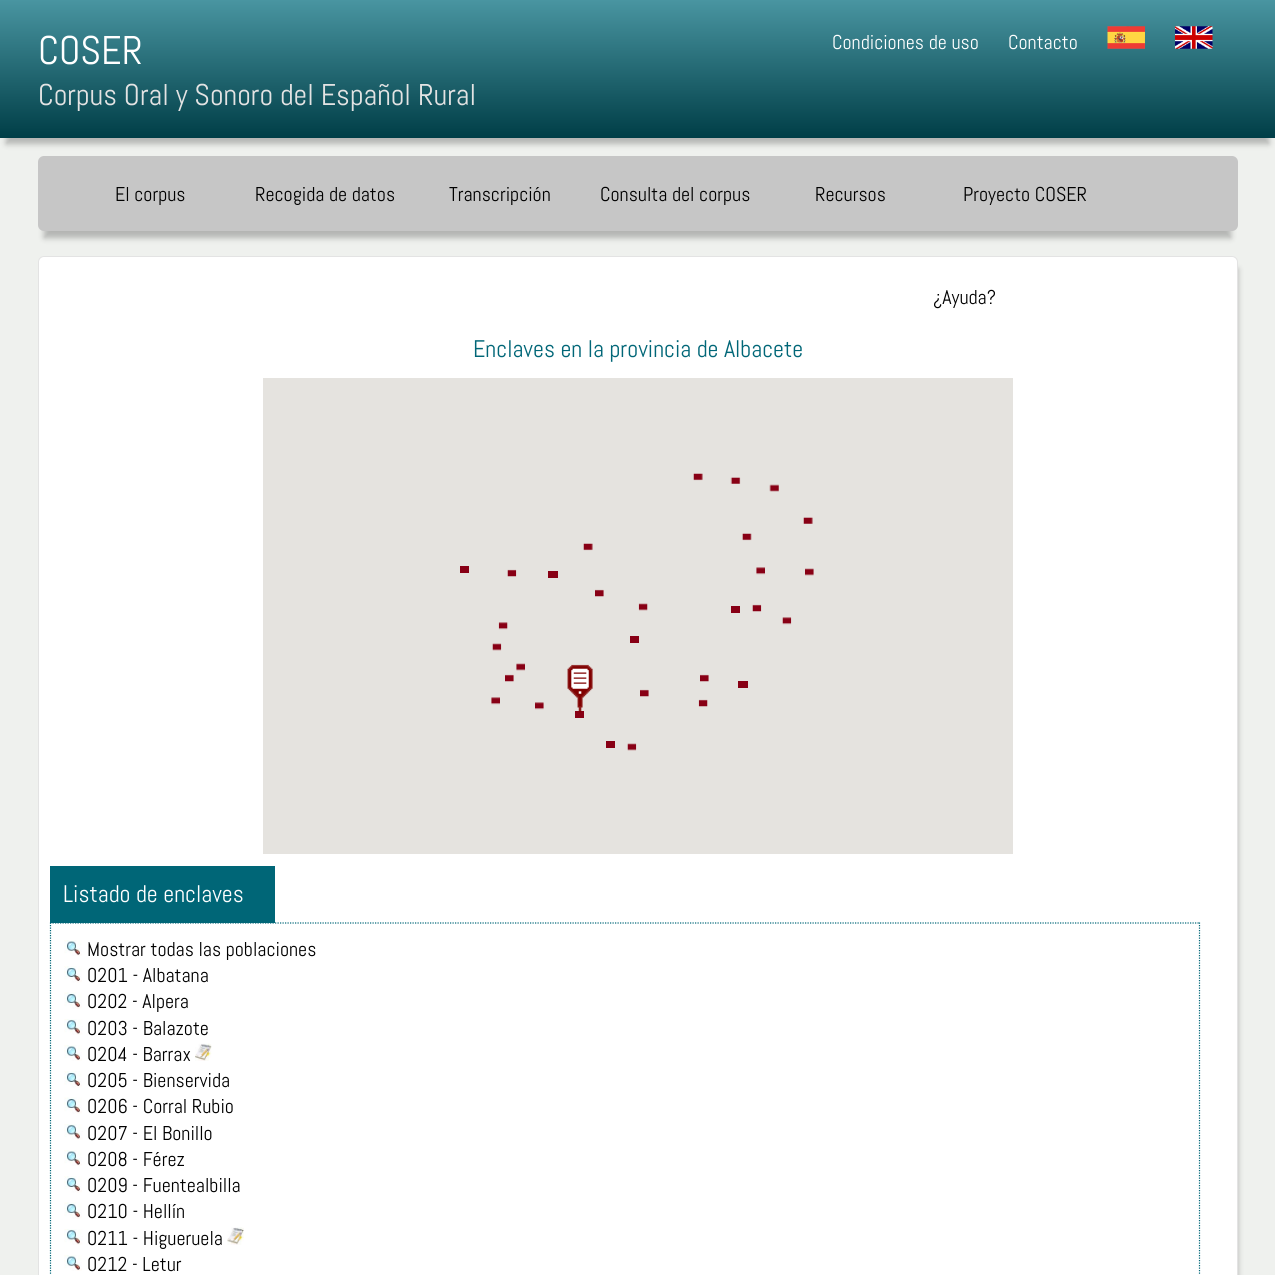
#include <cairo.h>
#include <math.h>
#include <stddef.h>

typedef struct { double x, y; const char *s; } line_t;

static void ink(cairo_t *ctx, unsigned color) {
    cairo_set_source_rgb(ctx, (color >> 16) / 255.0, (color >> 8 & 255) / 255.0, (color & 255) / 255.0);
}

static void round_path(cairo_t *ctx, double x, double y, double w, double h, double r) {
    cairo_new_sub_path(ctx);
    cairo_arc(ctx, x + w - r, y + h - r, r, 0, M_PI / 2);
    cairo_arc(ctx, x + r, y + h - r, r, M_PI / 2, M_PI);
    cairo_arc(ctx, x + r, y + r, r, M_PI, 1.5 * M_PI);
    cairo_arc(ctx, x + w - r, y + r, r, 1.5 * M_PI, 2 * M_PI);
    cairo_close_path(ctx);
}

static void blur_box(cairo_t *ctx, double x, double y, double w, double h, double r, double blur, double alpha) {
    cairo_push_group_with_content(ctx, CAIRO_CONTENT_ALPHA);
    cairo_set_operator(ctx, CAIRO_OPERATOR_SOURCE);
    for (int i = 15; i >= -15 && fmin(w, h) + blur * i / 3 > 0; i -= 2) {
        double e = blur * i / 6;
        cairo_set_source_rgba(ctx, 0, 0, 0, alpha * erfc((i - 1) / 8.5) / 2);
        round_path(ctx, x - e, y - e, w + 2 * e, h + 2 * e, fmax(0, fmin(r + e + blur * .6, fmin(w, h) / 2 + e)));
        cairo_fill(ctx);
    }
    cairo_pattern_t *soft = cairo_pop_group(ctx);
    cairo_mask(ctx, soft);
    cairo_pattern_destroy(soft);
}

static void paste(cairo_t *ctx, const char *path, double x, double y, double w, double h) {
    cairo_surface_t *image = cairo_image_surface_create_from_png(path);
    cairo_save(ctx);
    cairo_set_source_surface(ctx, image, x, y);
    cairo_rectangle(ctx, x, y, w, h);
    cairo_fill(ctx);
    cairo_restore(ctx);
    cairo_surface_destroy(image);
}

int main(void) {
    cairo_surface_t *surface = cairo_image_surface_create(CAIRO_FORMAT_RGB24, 1275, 1275);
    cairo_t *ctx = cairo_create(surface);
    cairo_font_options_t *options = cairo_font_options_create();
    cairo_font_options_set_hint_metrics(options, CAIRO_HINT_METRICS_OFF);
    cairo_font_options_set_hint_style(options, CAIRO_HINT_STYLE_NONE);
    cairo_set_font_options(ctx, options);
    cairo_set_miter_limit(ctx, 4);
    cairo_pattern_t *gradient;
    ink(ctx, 0xEFF1EE);
    cairo_paint(ctx);
    ink(ctx, 0x000000);
    blur_box(ctx, 6, 19, 1263, 125, 0, 3, 0.25);
    gradient = cairo_pattern_create_linear(638, 0, 638, 138);
    cairo_pattern_add_color_stop_rgba(gradient, 0, 0.286, 0.584, 0.631, 1);
    cairo_pattern_add_color_stop_rgba(gradient, 1, 0, 0.243, 0.278, 1);
    cairo_set_source(ctx, gradient);
    cairo_pattern_destroy(gradient);
    cairo_rectangle(ctx, 0, 0, 1275, 138);
    cairo_fill(ctx);
    cairo_select_font_face(ctx, "Abel", CAIRO_FONT_SLANT_NORMAL, CAIRO_FONT_WEIGHT_NORMAL);
    cairo_set_font_size(ctx, 40);
    ink(ctx, 0xFFFFFF);
    cairo_move_to(ctx, 38, 64);
    cairo_show_text(ctx, "COSER");
    cairo_set_font_size(ctx, 20);
    cairo_move_to(ctx, 832, 49);
    cairo_show_text(ctx, "Condiciones de uso");
    cairo_move_to(ctx, 1008, 49);
    cairo_show_text(ctx, "Contacto");
    paste(ctx, "media/1.png", 1107, 26, 38, 23);
    paste(ctx, "media/2.png", 1175, 26, 38, 23);
    cairo_set_font_size(ctx, 30);
    ink(ctx, 0xE3E3E3);
    cairo_move_to(ctx, 38, 105);
    cairo_show_text(ctx, "Corpus Oral y Sonoro del Español Rural");
    ink(ctx, 0x000000);
    blur_box(ctx, 44, 175, 1187, 63, 0, 3, 0.25);
    ink(ctx, 0xC6C6C6);
    round_path(ctx, 38, 156, 1200, 75, 6);
    cairo_fill(ctx);
    cairo_set_font_size(ctx, 20);
    ink(ctx, 0x000000);
    {
        static const line_t items[] = {
            {115, 201, "El corpus"},
            {255, 201, "Recogida de datos"},
            {449, 201, "Transcripción"},
            {600, 201, "Consulta del corpus"},
            {815, 201, "Recursos"},
            {963, 201, "Proyecto COSER"},
        };
        for (size_t i = 0; i < sizeof items / sizeof *items; i++) {
            cairo_move_to(ctx, items[i].x, items[i].y);
            cairo_show_text(ctx, items[i].s);
        }
    }
    ink(ctx, 0x000000);
    blur_box(ctx, 50, 269, 1188, 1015, 0, 3, 0.25);
    ink(ctx, 0xFFFFFF);
    round_path(ctx, 38.5, 256.5, 1199, 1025, 5.5);
    cairo_fill_preserve(ctx);
    ink(ctx, 0xE3E3E3);
    cairo_set_line_width(ctx, 1);
    cairo_stroke(ctx);
    ink(ctx, 0x000000);
    cairo_move_to(ctx, 933, 304);
    cairo_show_text(ctx, "¿Ayuda?");
    cairo_set_font_size(ctx, 24);
    ink(ctx, 0x006677);
    cairo_move_to(ctx, 473, 357);
    cairo_show_text(ctx, "Enclaves en la provincia de Albacete");
    ink(ctx, 0xE5E3DF);
    cairo_rectangle(ctx, 263, 378, 750, 476);
    cairo_fill(ctx);
    paste(ctx, "media/3.png", 693, 473, 10, 8);
    paste(ctx, "media/4.png", 730, 477, 11, 7);
    paste(ctx, "media/5.png", 769, 484, 10, 8);
    paste(ctx, "media/6.png", 803, 517, 10, 7);
    paste(ctx, "media/7.png", 742, 533, 10, 8);
    paste(ctx, "media/8.png", 583, 543, 10, 8);
    ink(ctx, 0x880015);
    cairo_rectangle(ctx, 460, 566, 9, 7);
    cairo_fill(ctx);
    paste(ctx, "media/9.png", 507, 569, 10, 8);
    cairo_rectangle(ctx, 548, 571, 10, 7);
    cairo_fill(ctx);
    paste(ctx, "media/10.png", 756, 567, 9, 8);
    paste(ctx, "media/11.png", 805, 568, 9, 8);
    paste(ctx, "media/12.png", 595, 589, 9, 8);
    paste(ctx, "media/13.png", 638, 603, 10, 8);
    cairo_rectangle(ctx, 731, 606, 9, 7);
    cairo_fill(ctx);
    paste(ctx, "media/9.png", 752, 604, 10, 8);
    paste(ctx, "media/14.png", 782, 617, 10, 8);
    paste(ctx, "media/15.png", 498, 622, 10, 8);
    cairo_rectangle(ctx, 630, 636, 9, 7);
    cairo_fill(ctx);
    paste(ctx, "media/16.png", 492, 643, 10, 8);
    paste(ctx, "media/12.png", 505, 674, 9, 8);
    paste(ctx, "media/17.png", 516, 663, 9, 8);
    cairo_rectangle(ctx, 575, 711, 9, 7);
    cairo_fill(ctx);
    paste(ctx, "media/18.png", 567, 664, 26, 49);
    paste(ctx, "media/12.png", 700, 674, 9, 8);
    cairo_rectangle(ctx, 738, 681, 10, 7);
    cairo_fill(ctx);
    paste(ctx, "media/12.png", 640, 689, 9, 8);
    paste(ctx, "media/10.png", 491, 697, 9, 8);
    paste(ctx, "media/19.png", 535, 702, 9, 8);
    paste(ctx, "media/20.png", 698, 699, 10, 8);
    cairo_rectangle(ctx, 606, 741, 9, 7);
    cairo_fill(ctx);
    paste(ctx, "media/16.png", 627, 743, 10, 8);
    ink(ctx, 0x006677);
    cairo_rectangle(ctx, 50, 866, 225, 57);
    cairo_fill(ctx);
    ink(ctx, 0xFFFFFF);
    cairo_move_to(ctx, 63, 902);
    cairo_show_text(ctx, "Listado de enclaves");
    cairo_new_path(ctx);
    cairo_move_to(ctx, 50, 923);
    cairo_line_to(ctx, 1200, 923);
    ink(ctx, 0x006677);
    cairo_set_line_width(ctx, 1.2);
    cairo_set_dash(ctx, (double[]){1.25, 1.25}, 2, 0);
    cairo_stroke(ctx);
    cairo_new_path(ctx);
    cairo_move_to(ctx, 1199.5, 922.5);
    cairo_line_to(ctx, 1199.5, 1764);
    cairo_stroke(ctx);
    cairo_new_path(ctx);
    cairo_move_to(ctx, 50.5, 922.5);
    cairo_line_to(ctx, 50.5, 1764);
    cairo_stroke(ctx);
    paste(ctx, "media/21.png", 64, 940, 18, 16);
    cairo_set_font_size(ctx, 20);
    ink(ctx, 0x000000);
    cairo_move_to(ctx, 87, 956);
    cairo_show_text(ctx, "Mostrar todas las poblaciones");
    paste(ctx, "media/22.png", 64, 966, 18, 17);
    cairo_move_to(ctx, 87, 982);
    cairo_show_text(ctx, "0201 - Albatana");
    paste(ctx, "media/23.png", 64, 992, 18, 17);
    cairo_move_to(ctx, 87, 1008);
    cairo_show_text(ctx, "0202 - Alpera");
    paste(ctx, "media/24.png", 64, 1019, 19, 16);
    cairo_move_to(ctx, 87, 1035);
    cairo_show_text(ctx, "0203 - Balazote");
    paste(ctx, "media/21.png", 64, 1045, 18, 16);
    cairo_move_to(ctx, 87, 1061);
    cairo_show_text(ctx, "0204 - Barrax");
    paste(ctx, "media/25.png", 195, 1043, 17, 18);
    paste(ctx, "media/22.png", 64, 1071, 18, 17);
    cairo_move_to(ctx, 87, 1087);
    cairo_show_text(ctx, "0205 - Bienservida");
    paste(ctx, "media/23.png", 64, 1097, 18, 17);
    cairo_move_to(ctx, 87, 1113);
    cairo_show_text(ctx, "0206 - Corral Rubio");
    paste(ctx, "media/24.png", 64, 1124, 19, 16);
    cairo_move_to(ctx, 87, 1140);
    cairo_show_text(ctx, "0207 - El Bonillo");
    paste(ctx, "media/21.png", 64, 1150, 18, 16);
    cairo_move_to(ctx, 87, 1166);
    cairo_show_text(ctx, "0208 - Férez");
    paste(ctx, "media/22.png", 64, 1176, 18, 17);
    cairo_move_to(ctx, 87, 1192);
    cairo_show_text(ctx, "0209 - Fuentealbilla");
    paste(ctx, "media/23.png", 64, 1202, 18, 17);
    cairo_move_to(ctx, 87, 1218);
    cairo_show_text(ctx, "0210 - Hellín");
    paste(ctx, "media/24.png", 64, 1229, 19, 16);
    cairo_move_to(ctx, 87, 1245);
    cairo_show_text(ctx, "0211 - Higueruela");
    paste(ctx, "media/26.png", 227, 1227, 17, 18);
    paste(ctx, "media/21.png", 64, 1255, 18, 16);
    cairo_move_to(ctx, 87, 1271);
    cairo_show_text(ctx, "0212 - Letur");
    cairo_surface_write_to_png(surface, "image.png");
    cairo_font_options_destroy(options);
    cairo_destroy(ctx);
    cairo_surface_destroy(surface);
    return 0;
}
